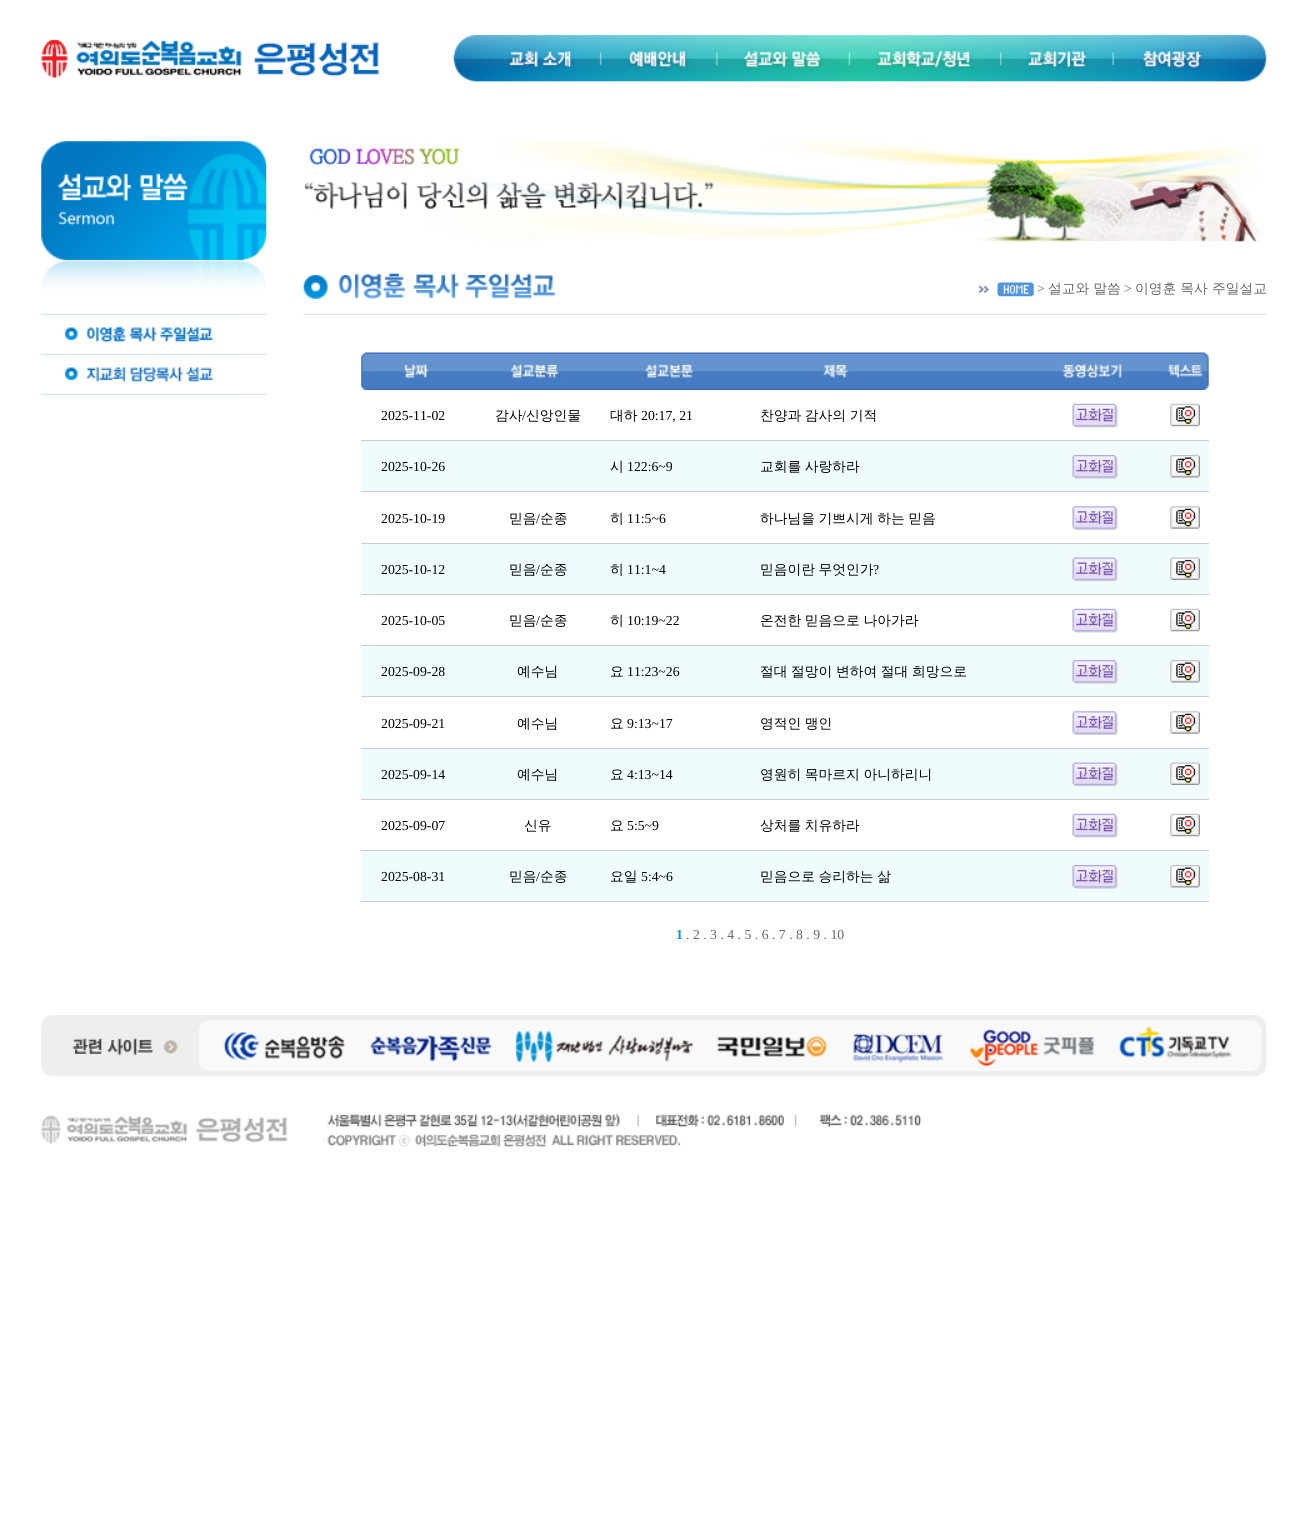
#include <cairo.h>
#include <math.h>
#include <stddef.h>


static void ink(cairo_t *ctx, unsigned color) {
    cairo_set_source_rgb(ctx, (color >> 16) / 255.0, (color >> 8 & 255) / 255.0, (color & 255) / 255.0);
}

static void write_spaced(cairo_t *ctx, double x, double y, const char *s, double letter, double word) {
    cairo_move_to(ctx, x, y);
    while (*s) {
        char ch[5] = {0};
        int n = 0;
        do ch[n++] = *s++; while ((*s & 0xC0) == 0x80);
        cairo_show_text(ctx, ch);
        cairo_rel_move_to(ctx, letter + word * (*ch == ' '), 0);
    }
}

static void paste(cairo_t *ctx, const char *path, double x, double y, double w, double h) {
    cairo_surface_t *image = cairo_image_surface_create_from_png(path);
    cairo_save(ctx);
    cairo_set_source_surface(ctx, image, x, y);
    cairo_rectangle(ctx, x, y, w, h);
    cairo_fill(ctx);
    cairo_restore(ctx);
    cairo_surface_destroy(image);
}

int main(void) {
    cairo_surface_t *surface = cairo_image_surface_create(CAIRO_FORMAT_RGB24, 1307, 1522);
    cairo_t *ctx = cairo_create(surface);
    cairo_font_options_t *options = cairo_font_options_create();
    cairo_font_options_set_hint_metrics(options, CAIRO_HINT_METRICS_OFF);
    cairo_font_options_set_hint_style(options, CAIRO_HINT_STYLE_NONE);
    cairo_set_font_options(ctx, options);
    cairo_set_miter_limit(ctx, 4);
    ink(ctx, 0xFFFFFF);
    cairo_paint(ctx);
    paste(ctx, "media/1.png", 41, 34, 1226, 48);
    paste(ctx, "media/2.png", 41, 141, 226, 148);
    paste(ctx, "media/3.png", 41, 313, 226, 2);
    paste(ctx, "media/4.png", 64, 326, 149, 17);
    paste(ctx, "media/3.png", 41, 353, 226, 2);
    paste(ctx, "media/5.png", 64, 366, 150, 17);
    paste(ctx, "media/3.png", 41, 393, 226, 2);
    paste(ctx, "media/6.png", 304, 141, 960, 101);
    paste(ctx, "media/7.png", 303, 273, 964, 42);
    paste(ctx, "media/8.png", 978, 282, 56, 15);
    cairo_select_font_face(ctx, "Liberation Serif", CAIRO_FONT_SLANT_NORMAL, CAIRO_FONT_WEIGHT_NORMAL);
    cairo_set_font_size(ctx, 13.75);
    ink(ctx, 0x666666);
    cairo_move_to(ctx, 1037, 293);
    cairo_show_text(ctx, ">");
    cairo_select_font_face(ctx, "WenQuanYi Zen Hei Medium", CAIRO_FONT_SLANT_NORMAL, CAIRO_FONT_WEIGHT_NORMAL);
    cairo_move_to(ctx, 1048, 293);
    cairo_show_text(ctx, "설교와 말씀");
    cairo_select_font_face(ctx, "Liberation Serif", CAIRO_FONT_SLANT_NORMAL, CAIRO_FONT_WEIGHT_NORMAL);
    cairo_move_to(ctx, 1124, 293);
    cairo_show_text(ctx, ">");
    cairo_select_font_face(ctx, "WenQuanYi Zen Hei Medium", CAIRO_FONT_SLANT_NORMAL, CAIRO_FONT_WEIGHT_NORMAL);
    cairo_move_to(ctx, 1135, 293);
    cairo_show_text(ctx, "이영훈 목사 주일설교");
    paste(ctx, "media/9.png", 361, 352, 848, 38);
    cairo_select_font_face(ctx, "Liberation Serif", CAIRO_FONT_SLANT_NORMAL, CAIRO_FONT_WEIGHT_NORMAL);
    ink(ctx, 0x000000);
    cairo_move_to(ctx, 381, 420);
    cairo_show_text(ctx, "2025-11-02");
    cairo_select_font_face(ctx, "WenQuanYi Zen Hei Medium", CAIRO_FONT_SLANT_NORMAL, CAIRO_FONT_WEIGHT_NORMAL);
    cairo_move_to(ctx, 495, 420);
    cairo_show_text(ctx, "감사");
    cairo_select_font_face(ctx, "Liberation Serif", CAIRO_FONT_SLANT_NORMAL, CAIRO_FONT_WEIGHT_NORMAL);
    cairo_move_to(ctx, 522, 420);
    cairo_show_text(ctx, "/");
    cairo_select_font_face(ctx, "WenQuanYi Zen Hei Medium", CAIRO_FONT_SLANT_NORMAL, CAIRO_FONT_WEIGHT_NORMAL);
    cairo_move_to(ctx, 526, 420);
    cairo_show_text(ctx, "신앙인물");
    cairo_move_to(ctx, 610, 420);
    cairo_show_text(ctx, "대하");
    cairo_select_font_face(ctx, "Liberation Serif", CAIRO_FONT_SLANT_NORMAL, CAIRO_FONT_WEIGHT_NORMAL);
    cairo_move_to(ctx, 641, 420);
    cairo_show_text(ctx, "20:17, 21");
    cairo_select_font_face(ctx, "WenQuanYi Zen Hei Medium", CAIRO_FONT_SLANT_NORMAL, CAIRO_FONT_WEIGHT_NORMAL);
    write_spaced(ctx, 760, 420, "찬양과 감사의 기적", 0, -0.5);
    paste(ctx, "media/10.png", 1072, 403, 46, 25);
    paste(ctx, "media/11.png", 1170, 403, 30, 24);
    ink(ctx, 0xCCCCCC);
    cairo_rectangle(ctx, 361, 440, 848, 1);
    cairo_fill(ctx);
    ink(ctx, 0xF0FBFE);
    cairo_rectangle(ctx, 361, 441, 848, 50);
    cairo_fill(ctx);
    cairo_select_font_face(ctx, "Liberation Serif", CAIRO_FONT_SLANT_NORMAL, CAIRO_FONT_WEIGHT_NORMAL);
    ink(ctx, 0x000000);
    cairo_move_to(ctx, 381, 471);
    cairo_show_text(ctx, "2025-10-26");
    cairo_select_font_face(ctx, "WenQuanYi Zen Hei Medium", CAIRO_FONT_SLANT_NORMAL, CAIRO_FONT_WEIGHT_NORMAL);
    cairo_move_to(ctx, 610, 471);
    cairo_show_text(ctx, "시");
    cairo_select_font_face(ctx, "Liberation Serif", CAIRO_FONT_SLANT_NORMAL, CAIRO_FONT_WEIGHT_NORMAL);
    cairo_move_to(ctx, 627, 471);
    cairo_show_text(ctx, "122:6~9");
    cairo_select_font_face(ctx, "WenQuanYi Zen Hei Medium", CAIRO_FONT_SLANT_NORMAL, CAIRO_FONT_WEIGHT_NORMAL);
    write_spaced(ctx, 760, 471, "교회를 사랑하라", 0, -0.5);
    paste(ctx, "media/12.png", 1072, 455, 46, 24);
    paste(ctx, "media/13.png", 1170, 455, 30, 23);
    ink(ctx, 0xCCCCCC);
    cairo_rectangle(ctx, 361, 491, 848, 1);
    cairo_fill(ctx);
    cairo_select_font_face(ctx, "Liberation Serif", CAIRO_FONT_SLANT_NORMAL, CAIRO_FONT_WEIGHT_NORMAL);
    ink(ctx, 0x000000);
    cairo_move_to(ctx, 381, 523);
    cairo_show_text(ctx, "2025-10-19");
    cairo_select_font_face(ctx, "WenQuanYi Zen Hei Medium", CAIRO_FONT_SLANT_NORMAL, CAIRO_FONT_WEIGHT_NORMAL);
    cairo_move_to(ctx, 509, 523);
    cairo_show_text(ctx, "믿음");
    cairo_select_font_face(ctx, "Liberation Serif", CAIRO_FONT_SLANT_NORMAL, CAIRO_FONT_WEIGHT_NORMAL);
    cairo_move_to(ctx, 536, 523);
    cairo_show_text(ctx, "/");
    cairo_select_font_face(ctx, "WenQuanYi Zen Hei Medium", CAIRO_FONT_SLANT_NORMAL, CAIRO_FONT_WEIGHT_NORMAL);
    cairo_move_to(ctx, 540, 523);
    cairo_show_text(ctx, "순종");
    cairo_move_to(ctx, 610, 523);
    cairo_show_text(ctx, "히");
    cairo_select_font_face(ctx, "Liberation Serif", CAIRO_FONT_SLANT_NORMAL, CAIRO_FONT_WEIGHT_NORMAL);
    cairo_move_to(ctx, 627, 523);
    cairo_show_text(ctx, "11:5~6");
    cairo_select_font_face(ctx, "WenQuanYi Zen Hei Medium", CAIRO_FONT_SLANT_NORMAL, CAIRO_FONT_WEIGHT_NORMAL);
    write_spaced(ctx, 760, 523, "하나님을 기쁘시게 하는 믿음", 0, -0.5);
    paste(ctx, "media/14.png", 1072, 506, 46, 24);
    paste(ctx, "media/15.png", 1170, 506, 30, 23);
    ink(ctx, 0xCCCCCC);
    cairo_rectangle(ctx, 361, 543, 848, 1);
    cairo_fill(ctx);
    ink(ctx, 0xF0FBFE);
    cairo_rectangle(ctx, 361, 544, 848, 50);
    cairo_fill(ctx);
    cairo_select_font_face(ctx, "Liberation Serif", CAIRO_FONT_SLANT_NORMAL, CAIRO_FONT_WEIGHT_NORMAL);
    ink(ctx, 0x000000);
    cairo_move_to(ctx, 381, 574);
    cairo_show_text(ctx, "2025-10-12");
    cairo_select_font_face(ctx, "WenQuanYi Zen Hei Medium", CAIRO_FONT_SLANT_NORMAL, CAIRO_FONT_WEIGHT_NORMAL);
    cairo_move_to(ctx, 509, 574);
    cairo_show_text(ctx, "믿음");
    cairo_select_font_face(ctx, "Liberation Serif", CAIRO_FONT_SLANT_NORMAL, CAIRO_FONT_WEIGHT_NORMAL);
    cairo_move_to(ctx, 536, 574);
    cairo_show_text(ctx, "/");
    cairo_select_font_face(ctx, "WenQuanYi Zen Hei Medium", CAIRO_FONT_SLANT_NORMAL, CAIRO_FONT_WEIGHT_NORMAL);
    cairo_move_to(ctx, 540, 574);
    cairo_show_text(ctx, "순종");
    cairo_move_to(ctx, 610, 574);
    cairo_show_text(ctx, "히");
    cairo_select_font_face(ctx, "Liberation Serif", CAIRO_FONT_SLANT_NORMAL, CAIRO_FONT_WEIGHT_NORMAL);
    cairo_move_to(ctx, 627, 574);
    cairo_show_text(ctx, "11:1~4");
    cairo_select_font_face(ctx, "WenQuanYi Zen Hei Medium", CAIRO_FONT_SLANT_NORMAL, CAIRO_FONT_WEIGHT_NORMAL);
    write_spaced(ctx, 760, 574, "믿음이란 무엇인가", 0, -0.5);
    cairo_select_font_face(ctx, "Liberation Serif", CAIRO_FONT_SLANT_NORMAL, CAIRO_FONT_WEIGHT_NORMAL);
    cairo_move_to(ctx, 873, 574);
    cairo_show_text(ctx, "?");
    paste(ctx, "media/16.png", 1072, 557, 46, 25);
    paste(ctx, "media/17.png", 1170, 557, 30, 23);
    ink(ctx, 0xCCCCCC);
    cairo_rectangle(ctx, 361, 594, 848, 1);
    cairo_fill(ctx);
    ink(ctx, 0x000000);
    cairo_move_to(ctx, 381, 625);
    cairo_show_text(ctx, "2025-10-05");
    cairo_select_font_face(ctx, "WenQuanYi Zen Hei Medium", CAIRO_FONT_SLANT_NORMAL, CAIRO_FONT_WEIGHT_NORMAL);
    cairo_move_to(ctx, 509, 625);
    cairo_show_text(ctx, "믿음");
    cairo_select_font_face(ctx, "Liberation Serif", CAIRO_FONT_SLANT_NORMAL, CAIRO_FONT_WEIGHT_NORMAL);
    cairo_move_to(ctx, 536, 625);
    cairo_show_text(ctx, "/");
    cairo_select_font_face(ctx, "WenQuanYi Zen Hei Medium", CAIRO_FONT_SLANT_NORMAL, CAIRO_FONT_WEIGHT_NORMAL);
    cairo_move_to(ctx, 540, 625);
    cairo_show_text(ctx, "순종");
    cairo_move_to(ctx, 610, 625);
    cairo_show_text(ctx, "히");
    cairo_select_font_face(ctx, "Liberation Serif", CAIRO_FONT_SLANT_NORMAL, CAIRO_FONT_WEIGHT_NORMAL);
    cairo_move_to(ctx, 627, 625);
    cairo_show_text(ctx, "10:19~22");
    cairo_select_font_face(ctx, "WenQuanYi Zen Hei Medium", CAIRO_FONT_SLANT_NORMAL, CAIRO_FONT_WEIGHT_NORMAL);
    write_spaced(ctx, 760, 625, "온전한 믿음으로 나아가라", 0, -0.5);
    paste(ctx, "media/10.png", 1072, 608, 46, 25);
    paste(ctx, "media/11.png", 1170, 608, 30, 24);
    ink(ctx, 0xCCCCCC);
    cairo_rectangle(ctx, 361, 645, 848, 1);
    cairo_fill(ctx);
    ink(ctx, 0xF0FBFE);
    cairo_rectangle(ctx, 361, 646, 848, 50);
    cairo_fill(ctx);
    cairo_select_font_face(ctx, "Liberation Serif", CAIRO_FONT_SLANT_NORMAL, CAIRO_FONT_WEIGHT_NORMAL);
    ink(ctx, 0x000000);
    cairo_move_to(ctx, 381, 676);
    cairo_show_text(ctx, "2025-09-28");
    cairo_select_font_face(ctx, "WenQuanYi Zen Hei Medium", CAIRO_FONT_SLANT_NORMAL, CAIRO_FONT_WEIGHT_NORMAL);
    cairo_move_to(ctx, 517, 676);
    cairo_show_text(ctx, "예수님");
    cairo_move_to(ctx, 610, 676);
    cairo_show_text(ctx, "요");
    cairo_select_font_face(ctx, "Liberation Serif", CAIRO_FONT_SLANT_NORMAL, CAIRO_FONT_WEIGHT_NORMAL);
    cairo_move_to(ctx, 627, 676);
    cairo_show_text(ctx, "11:23~26");
    cairo_select_font_face(ctx, "WenQuanYi Zen Hei Medium", CAIRO_FONT_SLANT_NORMAL, CAIRO_FONT_WEIGHT_NORMAL);
    write_spaced(ctx, 760, 676, "절대 절망이 변하여 절대 희망으로", 0, -0.5);
    paste(ctx, "media/12.png", 1072, 660, 46, 24);
    paste(ctx, "media/13.png", 1170, 660, 30, 23);
    ink(ctx, 0xCCCCCC);
    cairo_rectangle(ctx, 361, 696, 848, 1);
    cairo_fill(ctx);
    cairo_select_font_face(ctx, "Liberation Serif", CAIRO_FONT_SLANT_NORMAL, CAIRO_FONT_WEIGHT_NORMAL);
    ink(ctx, 0x000000);
    cairo_move_to(ctx, 381, 728);
    cairo_show_text(ctx, "2025-09-21");
    cairo_select_font_face(ctx, "WenQuanYi Zen Hei Medium", CAIRO_FONT_SLANT_NORMAL, CAIRO_FONT_WEIGHT_NORMAL);
    cairo_move_to(ctx, 517, 728);
    cairo_show_text(ctx, "예수님");
    cairo_move_to(ctx, 610, 728);
    cairo_show_text(ctx, "요");
    cairo_select_font_face(ctx, "Liberation Serif", CAIRO_FONT_SLANT_NORMAL, CAIRO_FONT_WEIGHT_NORMAL);
    cairo_move_to(ctx, 627, 728);
    cairo_show_text(ctx, "9:13~17");
    cairo_select_font_face(ctx, "WenQuanYi Zen Hei Medium", CAIRO_FONT_SLANT_NORMAL, CAIRO_FONT_WEIGHT_NORMAL);
    write_spaced(ctx, 760, 728, "영적인 맹인", 0, -0.5);
    paste(ctx, "media/14.png", 1072, 711, 46, 24);
    paste(ctx, "media/15.png", 1170, 711, 30, 23);
    ink(ctx, 0xCCCCCC);
    cairo_rectangle(ctx, 361, 748, 848, 1);
    cairo_fill(ctx);
    ink(ctx, 0xF0FBFE);
    cairo_rectangle(ctx, 361, 749, 848, 50);
    cairo_fill(ctx);
    cairo_select_font_face(ctx, "Liberation Serif", CAIRO_FONT_SLANT_NORMAL, CAIRO_FONT_WEIGHT_NORMAL);
    ink(ctx, 0x000000);
    cairo_move_to(ctx, 381, 779);
    cairo_show_text(ctx, "2025-09-14");
    cairo_select_font_face(ctx, "WenQuanYi Zen Hei Medium", CAIRO_FONT_SLANT_NORMAL, CAIRO_FONT_WEIGHT_NORMAL);
    cairo_move_to(ctx, 517, 779);
    cairo_show_text(ctx, "예수님");
    cairo_move_to(ctx, 610, 779);
    cairo_show_text(ctx, "요");
    cairo_select_font_face(ctx, "Liberation Serif", CAIRO_FONT_SLANT_NORMAL, CAIRO_FONT_WEIGHT_NORMAL);
    cairo_move_to(ctx, 627, 779);
    cairo_show_text(ctx, "4:13~14");
    cairo_select_font_face(ctx, "WenQuanYi Zen Hei Medium", CAIRO_FONT_SLANT_NORMAL, CAIRO_FONT_WEIGHT_NORMAL);
    write_spaced(ctx, 760, 779, "영원히 목마르지 아니하리니", 0, -0.5);
    paste(ctx, "media/16.png", 1072, 762, 46, 25);
    paste(ctx, "media/17.png", 1170, 762, 30, 23);
    ink(ctx, 0xCCCCCC);
    cairo_rectangle(ctx, 361, 799, 848, 1);
    cairo_fill(ctx);
    cairo_select_font_face(ctx, "Liberation Serif", CAIRO_FONT_SLANT_NORMAL, CAIRO_FONT_WEIGHT_NORMAL);
    ink(ctx, 0x000000);
    cairo_move_to(ctx, 381, 830);
    cairo_show_text(ctx, "2025-09-07");
    cairo_select_font_face(ctx, "WenQuanYi Zen Hei Medium", CAIRO_FONT_SLANT_NORMAL, CAIRO_FONT_WEIGHT_NORMAL);
    cairo_move_to(ctx, 524, 830);
    cairo_show_text(ctx, "신유");
    cairo_move_to(ctx, 610, 830);
    cairo_show_text(ctx, "요");
    cairo_select_font_face(ctx, "Liberation Serif", CAIRO_FONT_SLANT_NORMAL, CAIRO_FONT_WEIGHT_NORMAL);
    cairo_move_to(ctx, 627, 830);
    cairo_show_text(ctx, "5:5~9");
    cairo_select_font_face(ctx, "WenQuanYi Zen Hei Medium", CAIRO_FONT_SLANT_NORMAL, CAIRO_FONT_WEIGHT_NORMAL);
    write_spaced(ctx, 760, 830, "상처를 치유하라", 0, -0.5);
    paste(ctx, "media/10.png", 1072, 813, 46, 25);
    paste(ctx, "media/11.png", 1170, 813, 30, 24);
    ink(ctx, 0xCCCCCC);
    cairo_rectangle(ctx, 361, 850, 848, 1);
    cairo_fill(ctx);
    ink(ctx, 0xF0FBFE);
    cairo_rectangle(ctx, 361, 851, 848, 50);
    cairo_fill(ctx);
    cairo_select_font_face(ctx, "Liberation Serif", CAIRO_FONT_SLANT_NORMAL, CAIRO_FONT_WEIGHT_NORMAL);
    ink(ctx, 0x000000);
    cairo_move_to(ctx, 381, 881);
    cairo_show_text(ctx, "2025-08-31");
    cairo_select_font_face(ctx, "WenQuanYi Zen Hei Medium", CAIRO_FONT_SLANT_NORMAL, CAIRO_FONT_WEIGHT_NORMAL);
    cairo_move_to(ctx, 509, 881);
    cairo_show_text(ctx, "믿음");
    cairo_select_font_face(ctx, "Liberation Serif", CAIRO_FONT_SLANT_NORMAL, CAIRO_FONT_WEIGHT_NORMAL);
    cairo_move_to(ctx, 536, 881);
    cairo_show_text(ctx, "/");
    cairo_select_font_face(ctx, "WenQuanYi Zen Hei Medium", CAIRO_FONT_SLANT_NORMAL, CAIRO_FONT_WEIGHT_NORMAL);
    cairo_move_to(ctx, 540, 881);
    cairo_show_text(ctx, "순종");
    cairo_move_to(ctx, 610, 881);
    cairo_show_text(ctx, "요일");
    cairo_select_font_face(ctx, "Liberation Serif", CAIRO_FONT_SLANT_NORMAL, CAIRO_FONT_WEIGHT_NORMAL);
    cairo_move_to(ctx, 641, 881);
    cairo_show_text(ctx, "5:4~6");
    cairo_select_font_face(ctx, "WenQuanYi Zen Hei Medium", CAIRO_FONT_SLANT_NORMAL, CAIRO_FONT_WEIGHT_NORMAL);
    write_spaced(ctx, 760, 881, "믿음으로 승리하는 삶", 0, -0.5);
    paste(ctx, "media/12.png", 1072, 865, 46, 24);
    paste(ctx, "media/13.png", 1170, 865, 30, 23);
    ink(ctx, 0xCCCCCC);
    cairo_rectangle(ctx, 361, 901, 848, 1);
    cairo_fill(ctx);
    cairo_select_font_face(ctx, "Liberation Serif", CAIRO_FONT_SLANT_NORMAL, CAIRO_FONT_WEIGHT_BOLD);
    ink(ctx, 0x0099CC);
    cairo_move_to(ctx, 676, 939);
    cairo_show_text(ctx, "1");
    cairo_select_font_face(ctx, "Liberation Serif", CAIRO_FONT_SLANT_NORMAL, CAIRO_FONT_WEIGHT_NORMAL);
    ink(ctx, 0x666666);
    cairo_move_to(ctx, 686, 939);
    cairo_show_text(ctx, ". 2 . 3 . 4 . 5 . 6 . 7 . 8 . 9 . 10");
    paste(ctx, "media/18.png", 41, 1015, 1226, 62);
    paste(ctx, "media/19.png", 223, 1032, 122, 29);
    paste(ctx, "media/20.png", 370, 1034, 122, 28);
    paste(ctx, "media/21.png", 516, 1031, 177, 32);
    paste(ctx, "media/22.png", 717, 1035, 111, 23);
    paste(ctx, "media/23.png", 852, 1033, 92, 30);
    paste(ctx, "media/24.png", 969, 1028, 125, 39);
    paste(ctx, "media/25.png", 1118, 1026, 114, 34);
    paste(ctx, "media/26.png", 41, 1113, 881, 34);
    cairo_surface_write_to_png(surface, "image.png");
    cairo_font_options_destroy(options);
    cairo_destroy(ctx);
    cairo_surface_destroy(surface);
    return 0;
}
